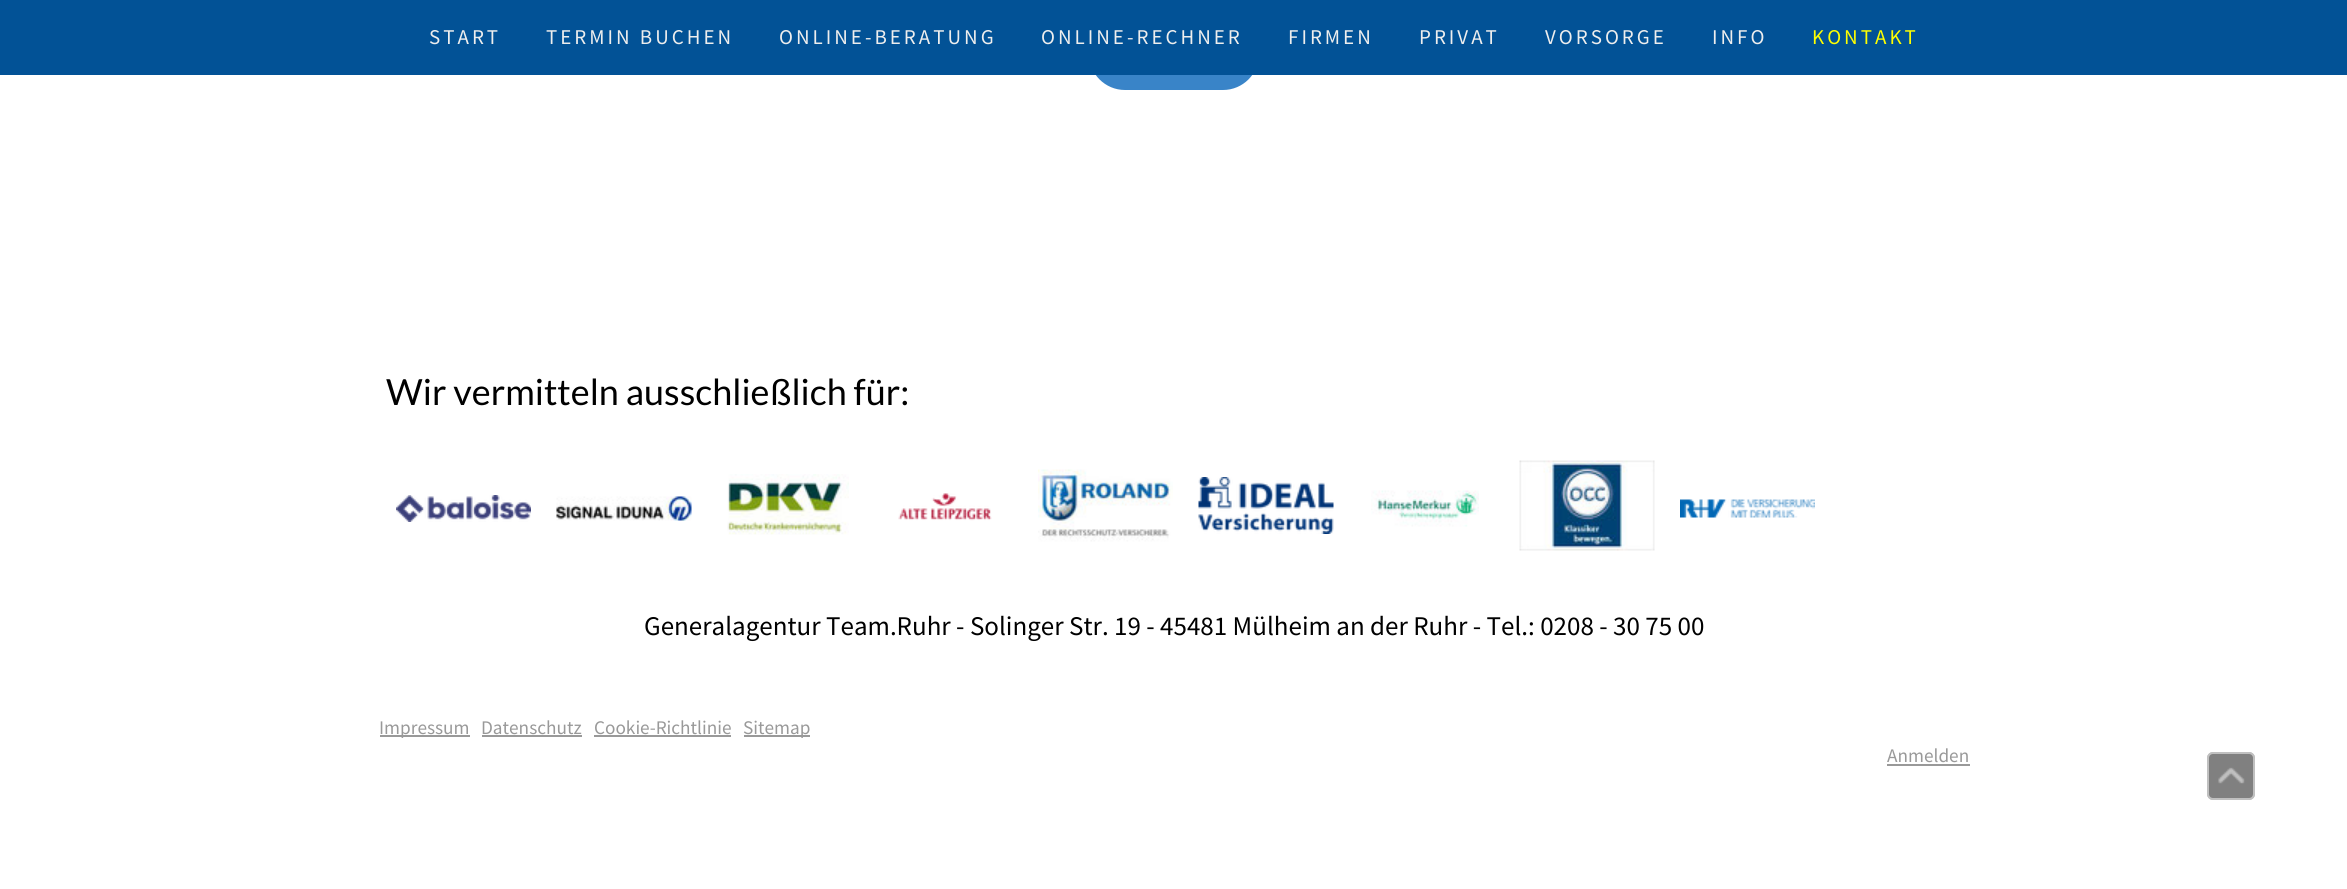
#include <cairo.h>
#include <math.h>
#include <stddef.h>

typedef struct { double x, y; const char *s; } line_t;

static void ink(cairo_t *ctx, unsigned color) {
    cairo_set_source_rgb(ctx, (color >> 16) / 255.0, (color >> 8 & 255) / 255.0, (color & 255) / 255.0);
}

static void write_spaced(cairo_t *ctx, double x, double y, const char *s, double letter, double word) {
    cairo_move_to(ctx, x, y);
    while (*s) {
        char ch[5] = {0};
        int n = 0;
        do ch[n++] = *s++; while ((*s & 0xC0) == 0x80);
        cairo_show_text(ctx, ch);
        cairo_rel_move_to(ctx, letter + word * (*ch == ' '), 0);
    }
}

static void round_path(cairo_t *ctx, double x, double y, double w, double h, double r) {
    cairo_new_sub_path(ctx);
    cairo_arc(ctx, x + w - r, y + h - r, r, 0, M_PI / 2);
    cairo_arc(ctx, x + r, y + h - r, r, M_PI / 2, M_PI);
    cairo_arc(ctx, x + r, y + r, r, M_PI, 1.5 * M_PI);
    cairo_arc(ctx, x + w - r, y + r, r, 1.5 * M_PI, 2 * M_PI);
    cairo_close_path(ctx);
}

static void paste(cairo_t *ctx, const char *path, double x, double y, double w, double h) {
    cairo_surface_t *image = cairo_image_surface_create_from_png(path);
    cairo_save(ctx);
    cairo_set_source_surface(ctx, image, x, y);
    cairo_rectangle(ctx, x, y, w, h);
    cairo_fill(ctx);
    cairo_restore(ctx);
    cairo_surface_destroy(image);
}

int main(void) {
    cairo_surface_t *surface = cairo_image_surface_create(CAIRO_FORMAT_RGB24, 2347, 889);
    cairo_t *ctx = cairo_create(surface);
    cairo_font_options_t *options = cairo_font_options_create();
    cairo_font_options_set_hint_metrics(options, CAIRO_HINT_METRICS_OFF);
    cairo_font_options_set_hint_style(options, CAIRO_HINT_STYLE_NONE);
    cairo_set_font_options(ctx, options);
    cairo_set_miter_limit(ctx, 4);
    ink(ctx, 0xFFFFFF);
    cairo_paint(ctx);
    ink(ctx, 0x3984C8);
    round_path(ctx, 1090.5, 19.5, 167, 69, 34.5);
    cairo_fill_preserve(ctx);
    cairo_set_line_width(ctx, 3);
    cairo_stroke(ctx);
    ink(ctx, 0x025296);
    cairo_rectangle(ctx, 0, 0, 2347, 75);
    cairo_fill(ctx);
    cairo_select_font_face(ctx, "Source Sans Pro", CAIRO_FONT_SLANT_NORMAL, CAIRO_FONT_WEIGHT_NORMAL);
    cairo_set_font_size(ctx, 21);
    ink(ctx, 0xEEEEEE);
    {
        static const line_t items[] = {
            {429, 44, "START"},
            {546, 44, "TERMIN BUCHEN"},
            {779, 44, "ONLINE-BERATUNG"},
            {1041, 44, "ONLINE-RECHNER"},
            {1288, 44, "FIRMEN"},
            {1419, 44, "PRIVAT"},
            {1545, 44, "VORSORGE"},
            {1712, 44, "INFO"},
        };
        for (size_t i = 0; i < sizeof items / sizeof *items; i++) {
            write_spaced(ctx, items[i].x, items[i].y, items[i].s, 3, 0);
        }
    }
    ink(ctx, 0xFFFF00);
    write_spaced(ctx, 1812, 44, "KONTAKT", 3, 0);
    cairo_select_font_face(ctx, "Lato", CAIRO_FONT_SLANT_NORMAL, CAIRO_FONT_WEIGHT_NORMAL);
    cairo_set_font_size(ctx, 36);
    ink(ctx, 0x000000);
    cairo_move_to(ctx, 386, 405);
    cairo_show_text(ctx, "Wir vermitteln ausschließlich für:");
    paste(ctx, "media/1.png", 396, 495, 135, 27);
    paste(ctx, "media/2.png", 556, 496, 136, 25);
    paste(ctx, "media/3.png", 727, 474, 122, 61);
    paste(ctx, "media/4.png", 898, 493, 94, 28);
    paste(ctx, "media/5.png", 1038, 469, 135, 73);
    paste(ctx, "media/6.png", 1198, 477, 136, 57);
    paste(ctx, "media/7.png", 1371, 490, 108, 37);
    paste(ctx, "media/8.png", 1519, 460, 136, 91);
    paste(ctx, "media/9.png", 1680, 499, 135, 19);
    cairo_select_font_face(ctx, "Source Sans Pro", CAIRO_FONT_SLANT_NORMAL, CAIRO_FONT_WEIGHT_NORMAL);
    cairo_set_font_size(ctx, 27);
    cairo_move_to(ctx, 644, 635);
    cairo_show_text(ctx, "Generalagentur Team.Ruhr - Solinger Str. 19 - 45481 Mülheim an der Ruhr - Tel.: 0208 - 30 75 00");
    ink(ctx, 0x999999);
    cairo_rectangle(ctx, 380, 735, 90, 2);
    cairo_fill(ctx);
    cairo_set_font_size(ctx, 19.25);
    cairo_move_to(ctx, 379, 734);
    cairo_show_text(ctx, "Impressum");
    cairo_move_to(ctx, 481, 734);
    cairo_show_text(ctx, "Datenschutz");
    cairo_rectangle(ctx, 482, 735, 100, 2);
    cairo_fill(ctx);
    cairo_move_to(ctx, 594, 734);
    cairo_show_text(ctx, "Cookie-Richtlinie");
    cairo_rectangle(ctx, 594, 735, 137, 2);
    cairo_fill(ctx);
    cairo_rectangle(ctx, 744, 735, 66, 2);
    cairo_fill(ctx);
    cairo_move_to(ctx, 743, 734);
    cairo_show_text(ctx, "Sitemap");
    cairo_move_to(ctx, 1887, 762);
    cairo_show_text(ctx, "Anmelden");
    cairo_rectangle(ctx, 1887, 764, 83, 2);
    cairo_fill(ctx);
    ink(ctx, 0x808080);
    round_path(ctx, 2207, 752, 48, 48, 6);
    cairo_fill(ctx);
    round_path(ctx, 2208, 753, 46, 46, 5);
    cairo_set_source_rgba(ctx, 1, 1, 1, 0.5);
    cairo_set_line_width(ctx, 2);
    cairo_stroke(ctx);
    paste(ctx, "media/10.png", 2218, 767, 27, 17);
    cairo_surface_write_to_png(surface, "image.png");
    cairo_font_options_destroy(options);
    cairo_destroy(ctx);
    cairo_surface_destroy(surface);
    return 0;
}
